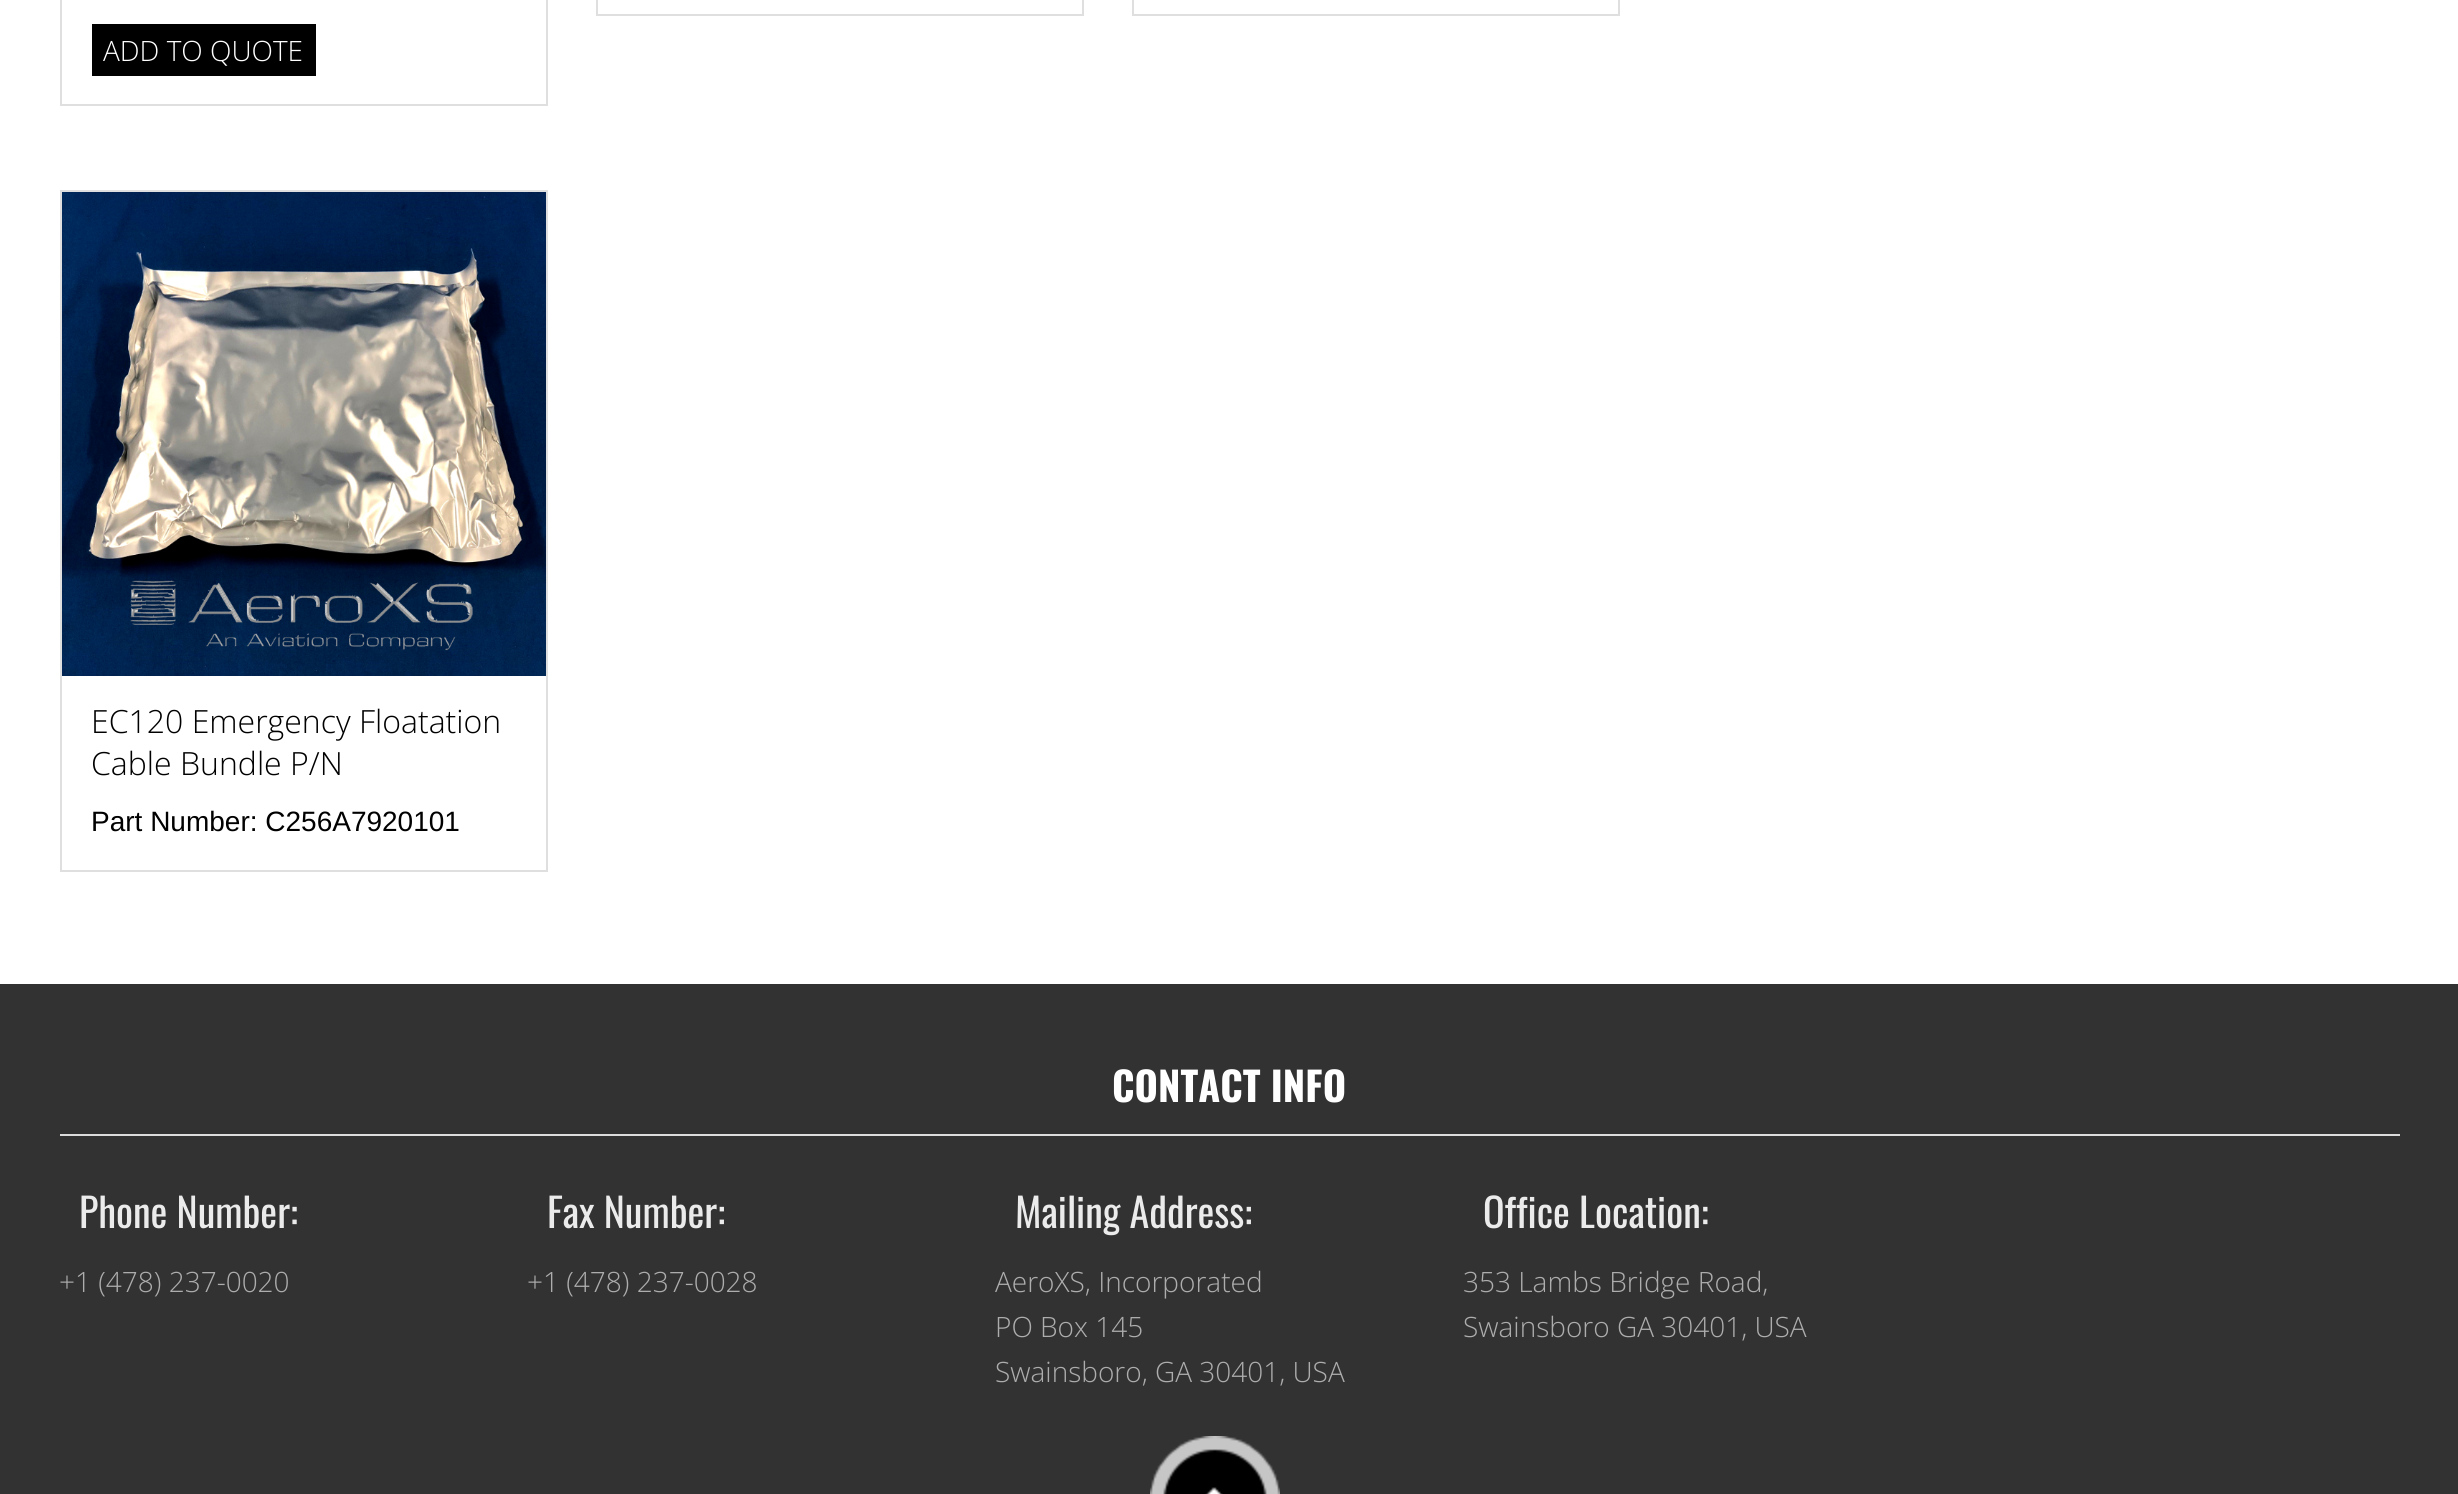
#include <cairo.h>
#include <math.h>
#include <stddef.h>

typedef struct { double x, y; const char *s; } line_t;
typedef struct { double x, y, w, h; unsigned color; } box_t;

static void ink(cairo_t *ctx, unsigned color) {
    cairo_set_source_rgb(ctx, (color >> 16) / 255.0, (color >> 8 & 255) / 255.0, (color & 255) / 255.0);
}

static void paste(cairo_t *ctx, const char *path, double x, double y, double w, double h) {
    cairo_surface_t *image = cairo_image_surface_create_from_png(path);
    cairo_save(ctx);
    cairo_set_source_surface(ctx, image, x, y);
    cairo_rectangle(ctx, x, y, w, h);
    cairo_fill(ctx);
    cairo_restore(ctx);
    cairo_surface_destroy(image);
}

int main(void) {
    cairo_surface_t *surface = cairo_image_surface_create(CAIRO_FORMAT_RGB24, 2458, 1494);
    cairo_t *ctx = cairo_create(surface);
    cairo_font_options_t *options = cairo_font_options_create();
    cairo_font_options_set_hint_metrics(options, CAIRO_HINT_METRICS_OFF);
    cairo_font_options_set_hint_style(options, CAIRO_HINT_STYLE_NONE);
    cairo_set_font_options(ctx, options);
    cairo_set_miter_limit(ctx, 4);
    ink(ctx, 0xFFFFFF);
    cairo_paint(ctx);
    {
        static const box_t items[] = {
            {1082, 0, 2, 16, 0xDFDFDF},
            {596, 14, 488, 2, 0xDFDFDF},
            {596, 0, 2, 16, 0xDFDFDF},
            {1618, 0, 2, 16, 0xDFDFDF},
            {1132, 14, 488, 2, 0xDFDFDF},
            {1132, 0, 2, 16, 0xDFDFDF},
            {546, 0, 2, 106, 0xDFDFDF},
            {60, 104, 488, 2, 0xDFDFDF},
            {60, 0, 2, 106, 0xDFDFDF},
            {92, 24, 224, 52, 0x000000},
        };
        for (size_t i = 0; i < sizeof items / sizeof *items; i++) {
            ink(ctx, items[i].color);
            cairo_rectangle(ctx, items[i].x, items[i].y, items[i].w, items[i].h);
            cairo_fill(ctx);
        }
    }
    cairo_select_font_face(ctx, "Open Sans Light", CAIRO_FONT_SLANT_NORMAL, CAIRO_FONT_WEIGHT_NORMAL);
    cairo_set_font_size(ctx, 28);
    ink(ctx, 0xFFFFFF);
    cairo_move_to(ctx, 103, 61);
    cairo_show_text(ctx, "ADD TO QUOTE");
    {
        static const box_t items[] = {
            {60, 190, 488, 2, 0xDFDFDF},
            {546, 190, 2, 482, 0xDFDFDF},
            {60, 190, 2, 482, 0xDFDFDF},
        };
        for (size_t i = 0; i < sizeof items / sizeof *items; i++) {
            ink(ctx, items[i].color);
            cairo_rectangle(ctx, items[i].x, items[i].y, items[i].w, items[i].h);
            cairo_fill(ctx);
        }
    }
    paste(ctx, "media/1.png", 62, 192, 484, 484);
    {
        static const box_t items[] = {
            {546, 672, 2, 200, 0xDFDFDF},
            {60, 870, 488, 2, 0xDFDFDF},
            {60, 672, 2, 200, 0xDFDFDF},
        };
        for (size_t i = 0; i < sizeof items / sizeof *items; i++) {
            ink(ctx, items[i].color);
            cairo_rectangle(ctx, items[i].x, items[i].y, items[i].w, items[i].h);
            cairo_fill(ctx);
        }
    }
    cairo_set_font_size(ctx, 32);
    ink(ctx, 0x000000);
    cairo_move_to(ctx, 91, 733);
    cairo_show_text(ctx, "EC120 Emergency Floatation");
    cairo_move_to(ctx, 91, 775);
    cairo_show_text(ctx, "Cable Bundle P/N");
    cairo_select_font_face(ctx, "Liberation Sans", CAIRO_FONT_SLANT_NORMAL, CAIRO_FONT_WEIGHT_NORMAL);
    cairo_set_font_size(ctx, 28);
    cairo_move_to(ctx, 91, 831);
    cairo_show_text(ctx, "Part Number: C256A7920101");
    ink(ctx, 0x323232);
    cairo_rectangle(ctx, 0, 984, 2458, 510);
    cairo_fill(ctx);
    ink(ctx, 0xDCDCDC);
    cairo_rectangle(ctx, 60, 1134, 2340, 2);
    cairo_fill(ctx);
    cairo_select_font_face(ctx, "Oswald", CAIRO_FONT_SLANT_NORMAL, CAIRO_FONT_WEIGHT_BOLD);
    cairo_set_font_size(ctx, 40);
    ink(ctx, 0xFFFFFF);
    cairo_move_to(ctx, 1112, 1102);
    cairo_show_text(ctx, "CONTACT INFO");
    cairo_select_font_face(ctx, "Oswald", CAIRO_FONT_SLANT_NORMAL, CAIRO_FONT_WEIGHT_NORMAL);
    ink(ctx, 0xEBEBEB);
    cairo_move_to(ctx, 79, 1228);
    cairo_show_text(ctx, "Phone Number:");
    cairo_select_font_face(ctx, "Open Sans Light", CAIRO_FONT_SLANT_NORMAL, CAIRO_FONT_WEIGHT_NORMAL);
    cairo_set_font_size(ctx, 28);
    ink(ctx, 0xADADAD);
    cairo_move_to(ctx, 59, 1292);
    cairo_show_text(ctx, "+1 (478) 237-0020");
    cairo_select_font_face(ctx, "Oswald", CAIRO_FONT_SLANT_NORMAL, CAIRO_FONT_WEIGHT_NORMAL);
    cairo_set_font_size(ctx, 40);
    ink(ctx, 0xEBEBEB);
    cairo_move_to(ctx, 547, 1228);
    cairo_show_text(ctx, "Fax Number:");
    cairo_select_font_face(ctx, "Open Sans Light", CAIRO_FONT_SLANT_NORMAL, CAIRO_FONT_WEIGHT_NORMAL);
    cairo_set_font_size(ctx, 28);
    ink(ctx, 0xADADAD);
    cairo_move_to(ctx, 527, 1292);
    cairo_show_text(ctx, "+1 (478) 237-0028");
    cairo_select_font_face(ctx, "Oswald", CAIRO_FONT_SLANT_NORMAL, CAIRO_FONT_WEIGHT_NORMAL);
    cairo_set_font_size(ctx, 40);
    ink(ctx, 0xEBEBEB);
    cairo_move_to(ctx, 1015, 1228);
    cairo_show_text(ctx, "Mailing Address:");
    cairo_select_font_face(ctx, "Open Sans Light", CAIRO_FONT_SLANT_NORMAL, CAIRO_FONT_WEIGHT_NORMAL);
    cairo_set_font_size(ctx, 28);
    ink(ctx, 0xADADAD);
    {
        static const line_t items[] = {
            {995, 1292, "AeroXS, Incorporated"},
            {995, 1337, "PO Box 145"},
            {995, 1382, "Swainsboro, GA 30401, USA"},
        };
        for (size_t i = 0; i < sizeof items / sizeof *items; i++) {
            cairo_move_to(ctx, items[i].x, items[i].y);
            cairo_show_text(ctx, items[i].s);
        }
    }
    cairo_select_font_face(ctx, "Oswald", CAIRO_FONT_SLANT_NORMAL, CAIRO_FONT_WEIGHT_NORMAL);
    cairo_set_font_size(ctx, 40);
    ink(ctx, 0xEBEBEB);
    cairo_move_to(ctx, 1483, 1228);
    cairo_show_text(ctx, "Office Location:");
    cairo_select_font_face(ctx, "Open Sans Light", CAIRO_FONT_SLANT_NORMAL, CAIRO_FONT_WEIGHT_NORMAL);
    cairo_set_font_size(ctx, 28);
    ink(ctx, 0xADADAD);
    cairo_move_to(ctx, 1463, 1292);
    cairo_show_text(ctx, "353 Lambs Bridge Road,");
    cairo_move_to(ctx, 1463, 1337);
    cairo_show_text(ctx, "Swainsboro GA 30401, USA");
    paste(ctx, "media/2.png", 1150, 1436, 130, 58);
    cairo_surface_write_to_png(surface, "image.png");
    cairo_font_options_destroy(options);
    cairo_destroy(ctx);
    cairo_surface_destroy(surface);
    return 0;
}
